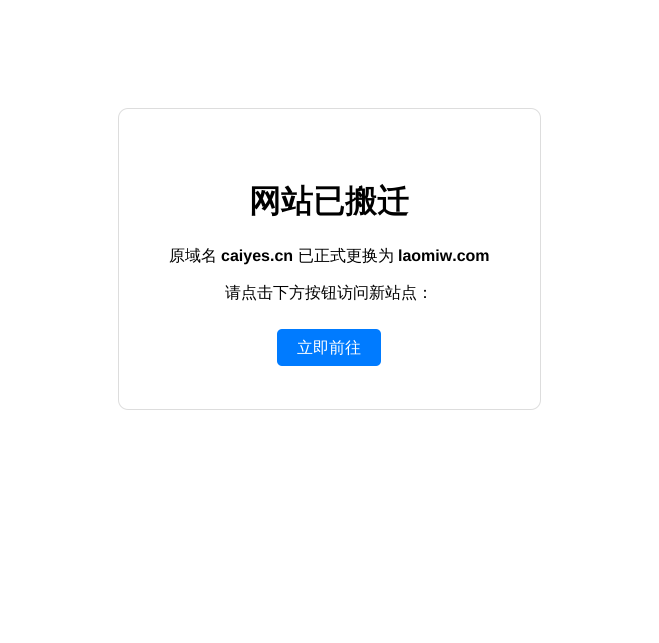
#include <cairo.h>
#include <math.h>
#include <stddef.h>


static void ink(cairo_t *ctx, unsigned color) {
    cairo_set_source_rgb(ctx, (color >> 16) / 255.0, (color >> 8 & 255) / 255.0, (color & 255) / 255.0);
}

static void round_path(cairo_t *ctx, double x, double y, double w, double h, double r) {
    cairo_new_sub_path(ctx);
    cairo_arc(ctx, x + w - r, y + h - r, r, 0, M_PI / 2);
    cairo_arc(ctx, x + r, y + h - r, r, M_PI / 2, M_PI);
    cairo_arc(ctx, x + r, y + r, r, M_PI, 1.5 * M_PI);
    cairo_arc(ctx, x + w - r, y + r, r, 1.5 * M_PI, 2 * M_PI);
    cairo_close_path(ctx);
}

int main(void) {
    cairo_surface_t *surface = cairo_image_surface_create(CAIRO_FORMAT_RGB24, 659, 643);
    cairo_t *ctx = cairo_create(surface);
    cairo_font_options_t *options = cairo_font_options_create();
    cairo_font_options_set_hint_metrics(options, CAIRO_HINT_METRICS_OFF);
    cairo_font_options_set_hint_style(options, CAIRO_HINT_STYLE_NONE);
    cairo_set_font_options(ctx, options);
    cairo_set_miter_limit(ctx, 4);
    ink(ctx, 0xFFFFFF);
    cairo_paint(ctx);
    round_path(ctx, 118.5, 108.5, 422, 301, 9.5);
    ink(ctx, 0xDDDDDD);
    cairo_set_line_width(ctx, 1);
    cairo_stroke(ctx);
    cairo_select_font_face(ctx, "WenQuanYi Zen Hei", CAIRO_FONT_SLANT_NORMAL, CAIRO_FONT_WEIGHT_BOLD);
    cairo_set_font_size(ctx, 32);
    ink(ctx, 0x000000);
    cairo_move_to(ctx, 249, 212);
    cairo_show_text(ctx, "网站已搬迁");
    cairo_select_font_face(ctx, "WenQuanYi Zen Hei Medium", CAIRO_FONT_SLANT_NORMAL, CAIRO_FONT_WEIGHT_NORMAL);
    cairo_set_font_size(ctx, 16);
    cairo_move_to(ctx, 169, 261);
    cairo_show_text(ctx, "原域名");
    cairo_select_font_face(ctx, "Liberation Sans", CAIRO_FONT_SLANT_NORMAL, CAIRO_FONT_WEIGHT_BOLD);
    cairo_move_to(ctx, 221, 261);
    cairo_show_text(ctx, "caiyes.cn");
    cairo_select_font_face(ctx, "WenQuanYi Zen Hei Medium", CAIRO_FONT_SLANT_NORMAL, CAIRO_FONT_WEIGHT_NORMAL);
    cairo_move_to(ctx, 298, 261);
    cairo_show_text(ctx, "已正式更换为");
    cairo_select_font_face(ctx, "Liberation Sans", CAIRO_FONT_SLANT_NORMAL, CAIRO_FONT_WEIGHT_BOLD);
    cairo_move_to(ctx, 398, 261);
    cairo_show_text(ctx, "laomiw.com");
    cairo_select_font_face(ctx, "WenQuanYi Zen Hei Medium", CAIRO_FONT_SLANT_NORMAL, CAIRO_FONT_WEIGHT_NORMAL);
    cairo_move_to(ctx, 225, 298);
    cairo_show_text(ctx, "请点击下方按钮访问新站点：");
    ink(ctx, 0x007BFF);
    round_path(ctx, 277, 329, 104, 37, 5);
    cairo_fill(ctx);
    ink(ctx, 0xFFFFFF);
    cairo_move_to(ctx, 297, 353);
    cairo_show_text(ctx, "立即前往");
    cairo_surface_write_to_png(surface, "image.png");
    cairo_font_options_destroy(options);
    cairo_destroy(ctx);
    cairo_surface_destroy(surface);
    return 0;
}
